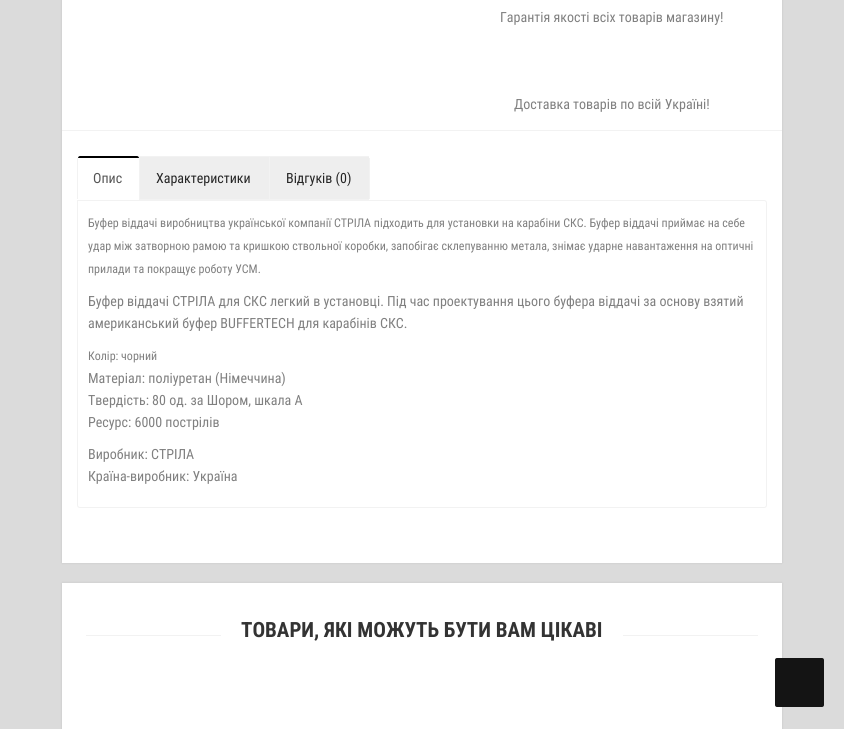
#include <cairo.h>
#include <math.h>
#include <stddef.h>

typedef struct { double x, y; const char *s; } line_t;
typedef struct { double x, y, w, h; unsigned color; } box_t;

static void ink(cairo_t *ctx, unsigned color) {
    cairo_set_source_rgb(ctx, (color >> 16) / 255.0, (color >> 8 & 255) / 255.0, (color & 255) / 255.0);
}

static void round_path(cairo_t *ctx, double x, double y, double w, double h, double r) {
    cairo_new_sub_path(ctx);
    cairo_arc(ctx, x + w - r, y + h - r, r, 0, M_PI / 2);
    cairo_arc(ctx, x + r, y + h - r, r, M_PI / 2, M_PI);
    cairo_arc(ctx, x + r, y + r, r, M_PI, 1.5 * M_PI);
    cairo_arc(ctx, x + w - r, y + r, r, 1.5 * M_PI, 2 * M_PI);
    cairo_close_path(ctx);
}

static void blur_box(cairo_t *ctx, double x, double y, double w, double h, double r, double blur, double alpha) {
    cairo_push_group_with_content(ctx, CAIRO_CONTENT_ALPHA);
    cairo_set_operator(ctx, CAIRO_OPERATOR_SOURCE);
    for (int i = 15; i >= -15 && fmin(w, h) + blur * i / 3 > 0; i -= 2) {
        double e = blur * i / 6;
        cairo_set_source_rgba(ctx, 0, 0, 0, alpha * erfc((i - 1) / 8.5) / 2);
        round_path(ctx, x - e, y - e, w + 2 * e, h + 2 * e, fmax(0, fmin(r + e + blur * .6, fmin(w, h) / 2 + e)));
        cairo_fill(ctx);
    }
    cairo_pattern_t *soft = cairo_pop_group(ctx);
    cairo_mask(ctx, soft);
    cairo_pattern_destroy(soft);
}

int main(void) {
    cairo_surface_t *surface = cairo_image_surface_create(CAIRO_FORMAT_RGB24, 844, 729);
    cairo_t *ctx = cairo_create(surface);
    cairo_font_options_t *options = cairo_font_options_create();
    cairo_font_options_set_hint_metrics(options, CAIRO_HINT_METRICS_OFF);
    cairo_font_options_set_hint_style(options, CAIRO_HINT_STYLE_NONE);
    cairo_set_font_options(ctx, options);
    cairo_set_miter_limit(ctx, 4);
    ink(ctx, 0xDBDBDB);
    cairo_paint(ctx);
    ink(ctx, 0x000000);
    blur_box(ctx, 62, -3, 720, 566, 0, 1, 0.1);
    ink(ctx, 0xFFFFFF);
    cairo_rectangle(ctx, 62, 0, 720, 563);
    cairo_fill(ctx);
    cairo_select_font_face(ctx, "Roboto Condensed", CAIRO_FONT_SLANT_NORMAL, CAIRO_FONT_WEIGHT_NORMAL);
    cairo_set_font_size(ctx, 14);
    ink(ctx, 0x808080);
    cairo_move_to(ctx, 500, 22);
    cairo_show_text(ctx, "Гарантія якості всіх товарів магазину!");
    cairo_move_to(ctx, 514, 109);
    cairo_show_text(ctx, "Доставка товарів по всій Україні!");
    {
        static const box_t items[] = {
            {62, 130, 720, 1, 0xF2F2F2},
            {369, 158, 1, 41, 0xF2F2F2},
            {77, 158, 1, 41, 0xF2F2F2},
        };
        for (size_t i = 0; i < sizeof items / sizeof *items; i++) {
            ink(ctx, items[i].color);
            cairo_rectangle(ctx, items[i].x, items[i].y, items[i].w, items[i].h);
            cairo_fill(ctx);
        }
    }
    ink(ctx, 0x000000);
    cairo_new_path(ctx);
    cairo_move_to(ctx, 80, 156);
    cairo_curve_to(ctx, 79, 156, 78, 157, 78, 158);
    cairo_line_to(ctx, 139, 158);
    cairo_curve_to(ctx, 139, 157, 138, 156, 137, 156);
    cairo_close_path(ctx);
    cairo_fill(ctx);
    ink(ctx, 0x555555);
    cairo_move_to(ctx, 93, 183);
    cairo_show_text(ctx, "Опис");
    {
        static const box_t items[] = {
            {140, 157, 129, 42, 0xEEEEEE},
            {139, 156, 230, 1, 0xF2F2F2},
            {139, 199, 230, 1, 0xF2F2F2},
            {139, 156, 1, 44, 0xF2F2F2},
        };
        for (size_t i = 0; i < sizeof items / sizeof *items; i++) {
            ink(ctx, items[i].color);
            cairo_rectangle(ctx, items[i].x, items[i].y, items[i].w, items[i].h);
            cairo_fill(ctx);
        }
    }
    ink(ctx, 0x252525);
    cairo_move_to(ctx, 156, 183);
    cairo_show_text(ctx, "Характеристики");
    ink(ctx, 0xEEEEEE);
    cairo_rectangle(ctx, 270, 157, 99, 42);
    cairo_fill(ctx);
    ink(ctx, 0xF2F2F2);
    cairo_rectangle(ctx, 269, 156, 1, 44);
    cairo_fill(ctx);
    ink(ctx, 0x252525);
    cairo_move_to(ctx, 286, 183);
    cairo_show_text(ctx, "Відгуків (0)");
    cairo_new_path(ctx);
    cairo_move_to(ctx, 77.5, 200.5);
    cairo_line_to(ctx, 764, 200.5);
    cairo_curve_to(ctx, 765.5, 200.5, 766.5, 201.5, 766.5, 203);
    cairo_line_to(ctx, 766.5, 505);
    cairo_curve_to(ctx, 766.5, 506.5, 765.5, 507.5, 764, 507.5);
    cairo_line_to(ctx, 80, 507.5);
    cairo_curve_to(ctx, 78.5, 507.5, 77.5, 506.5, 77.5, 505);
    cairo_close_path(ctx);
    ink(ctx, 0xF2F2F2);
    cairo_set_line_width(ctx, 1);
    cairo_stroke(ctx);
    cairo_set_font_size(ctx, 12);
    ink(ctx, 0x808080);
    {
        static const line_t items[] = {
            {88, 227, "Буфер віддачі виробництва української компанії СТРІЛА підходить для установки на карабіни СКС. Буфер віддачі приймає на себе"},
            {88, 250, "удар між затворною рамою та кришкою ствольної коробки, запобігає склепуванню метала, знімає ударне навантаження на оптичні"},
            {88, 273, "прилади та покращує роботу УСМ."},
        };
        for (size_t i = 0; i < sizeof items / sizeof *items; i++) {
            cairo_move_to(ctx, items[i].x, items[i].y);
            cairo_show_text(ctx, items[i].s);
        }
    }
    cairo_set_font_size(ctx, 14);
    cairo_move_to(ctx, 88, 306);
    cairo_show_text(ctx, "Буфер віддачі СТРІЛА для СКС легкий в установці. Під час проектування цього буфера віддачі за основу взятий");
    cairo_move_to(ctx, 88, 328);
    cairo_show_text(ctx, "американський буфер BUFFERTECH для карабінів СКС.");
    cairo_set_font_size(ctx, 12);
    cairo_move_to(ctx, 88, 360);
    cairo_show_text(ctx, "Колір: чорний");
    cairo_set_font_size(ctx, 14);
    {
        static const line_t items[] = {
            {88, 383, "Матеріал: поліуретан (Німеччина)"},
            {88, 405, "Твердість: 80 од. за Шором, шкала А"},
            {88, 427, "Ресурс: 6000 пострілів"},
            {88, 459, "Виробник: СТРІЛА"},
            {88, 481, "Країна-виробник: Україна"},
        };
        for (size_t i = 0; i < sizeof items / sizeof *items; i++) {
            cairo_move_to(ctx, items[i].x, items[i].y);
            cairo_show_text(ctx, items[i].s);
        }
    }
    ink(ctx, 0x000000);
    blur_box(ctx, 62, 583, 720, 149, 0, 1, 0.1);
    {
        static const box_t items[] = {
            {62, 583, 720, 146, 0xFFFFFF},
            {86, 635, 672, 1, 0xF2F2F2},
            {221, 635, 402, 1, 0xFFFFFF},
        };
        for (size_t i = 0; i < sizeof items / sizeof *items; i++) {
            ink(ctx, items[i].color);
            cairo_rectangle(ctx, items[i].x, items[i].y, items[i].w, items[i].h);
            cairo_fill(ctx);
        }
    }
    cairo_select_font_face(ctx, "Roboto Condensed", CAIRO_FONT_SLANT_NORMAL, CAIRO_FONT_WEIGHT_BOLD);
    cairo_set_font_size(ctx, 21);
    ink(ctx, 0x333333);
    cairo_move_to(ctx, 241, 637);
    cairo_show_text(ctx, "ТОВАРИ, ЯКІ МОЖУТЬ БУТИ ВАМ ЦІКАВІ");
    ink(ctx, 0x141414);
    round_path(ctx, 775, 658, 49, 49, 2);
    cairo_fill(ctx);
    cairo_surface_write_to_png(surface, "image.png");
    cairo_font_options_destroy(options);
    cairo_destroy(ctx);
    cairo_surface_destroy(surface);
    return 0;
}
